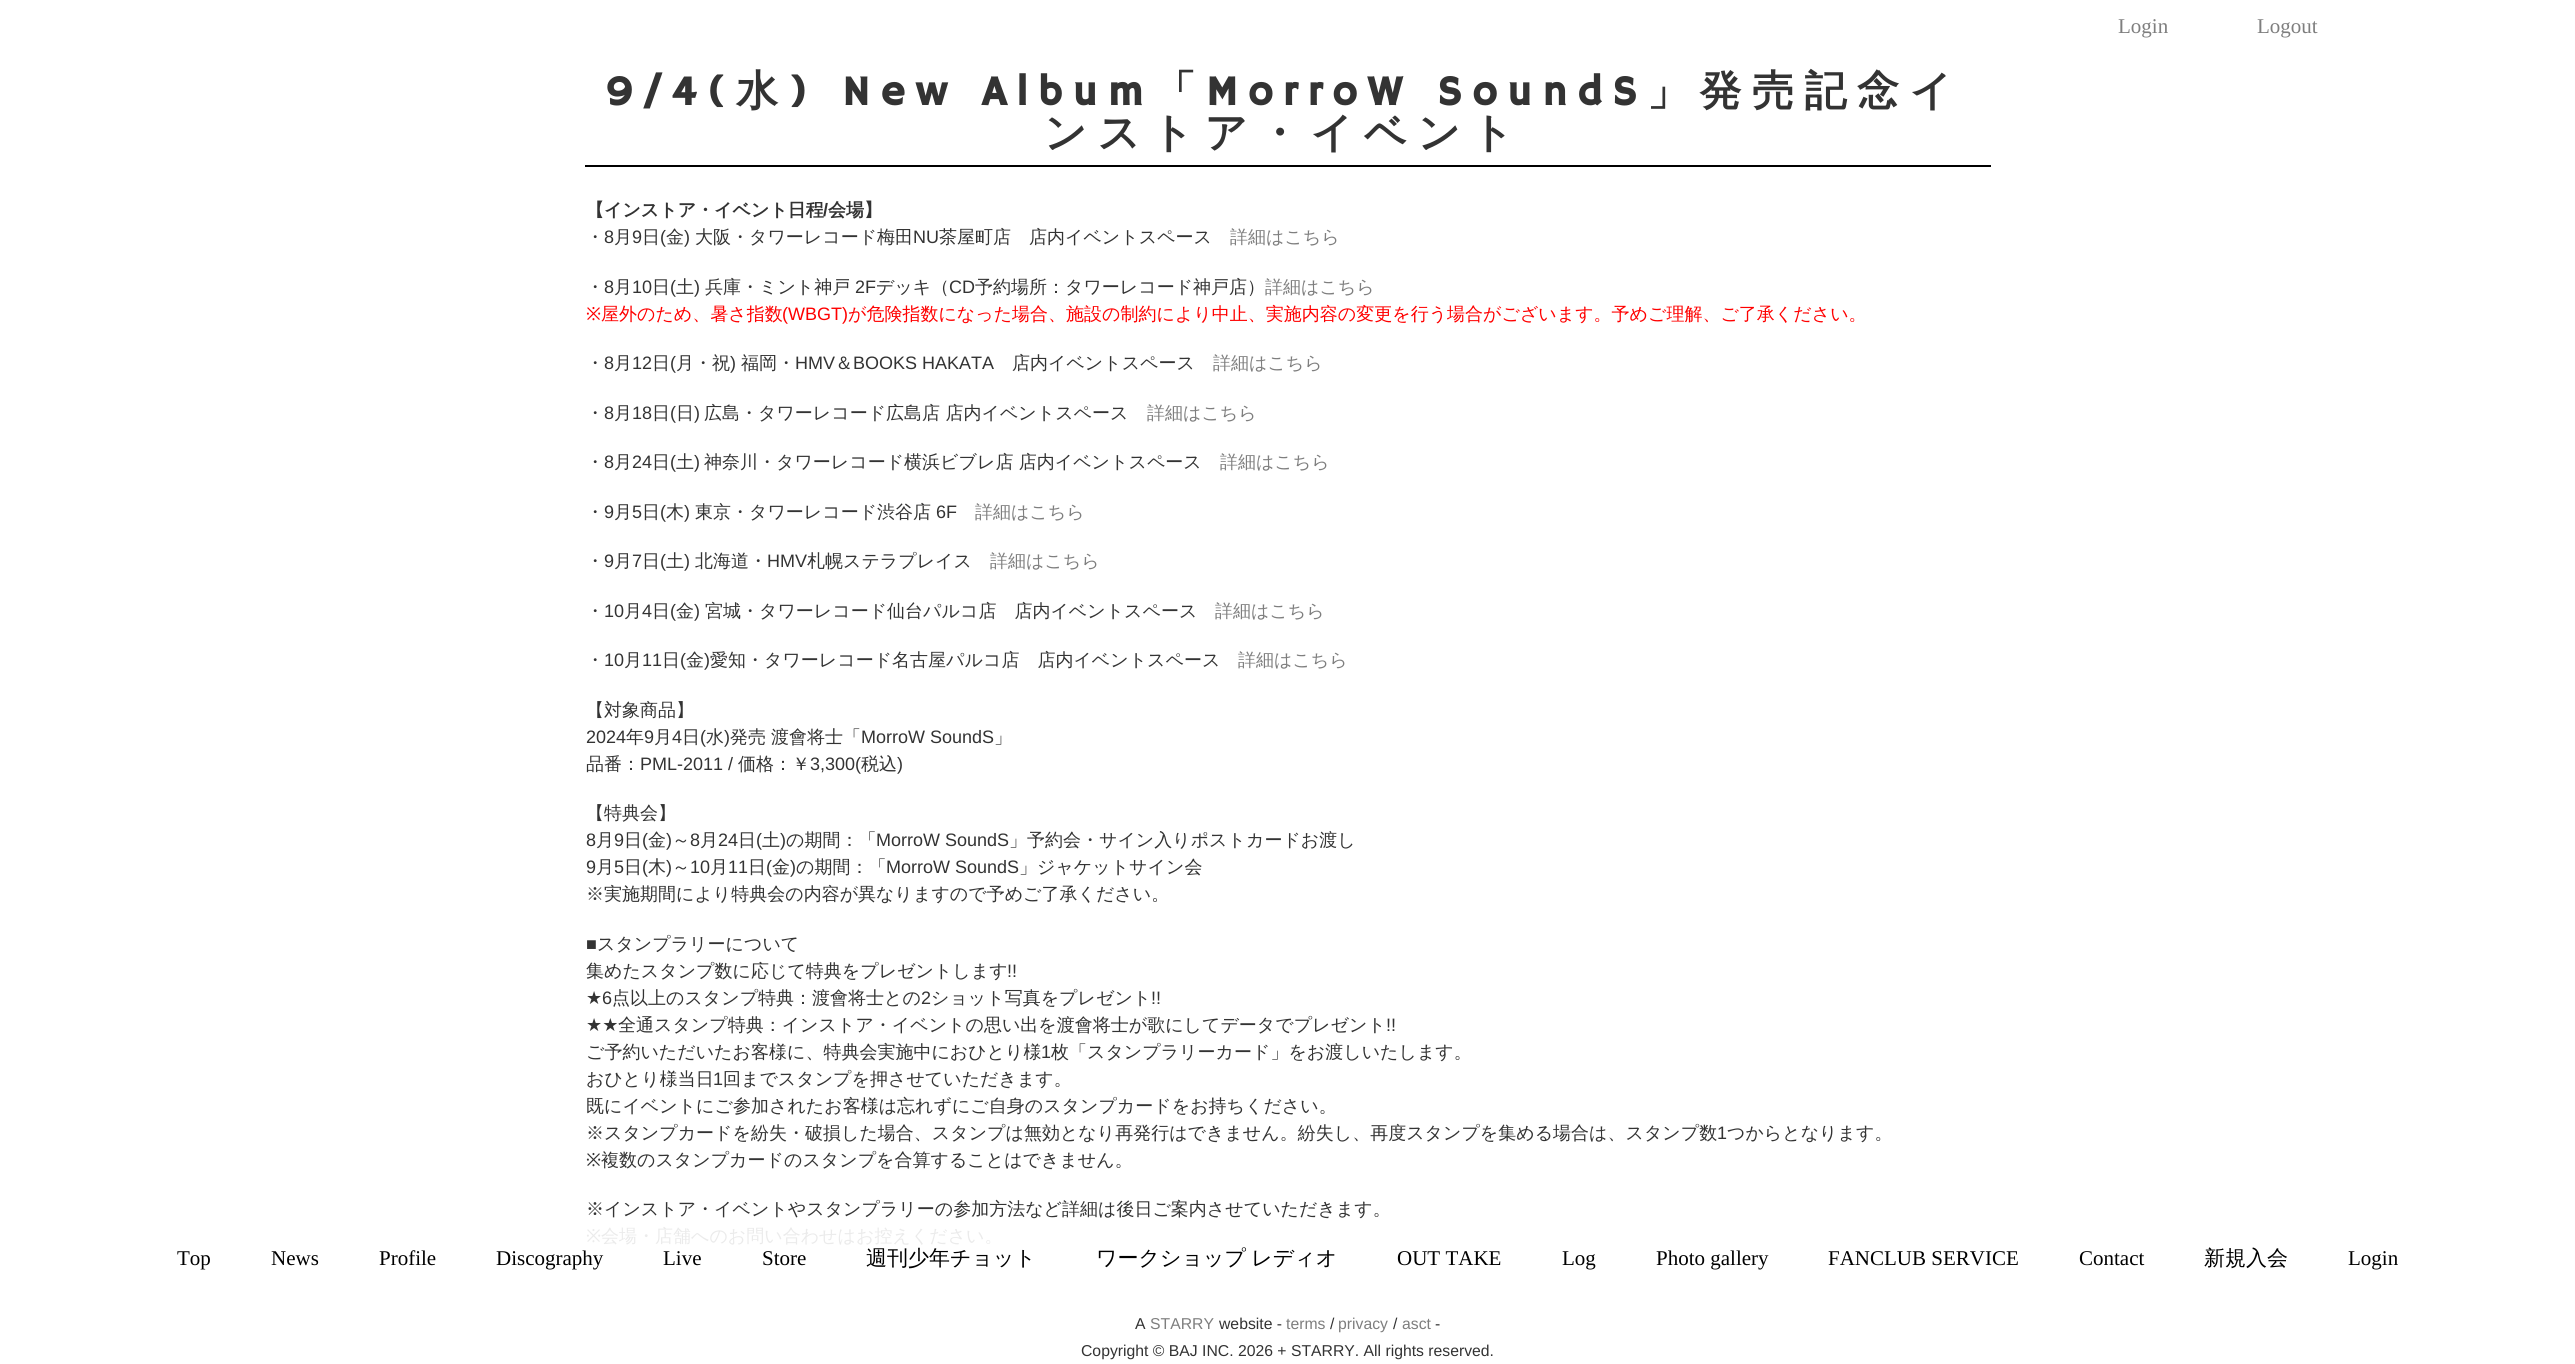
#include <cairo.h>
#include <math.h>
#include <stddef.h>

typedef struct { double x, y; const char *s; } line_t;

static void ink(cairo_t *ctx, unsigned color) {
    cairo_set_source_rgb(ctx, (color >> 16) / 255.0, (color >> 8 & 255) / 255.0, (color & 255) / 255.0);
}

static void write_spaced(cairo_t *ctx, double x, double y, const char *s, double letter, double word) {
    cairo_move_to(ctx, x, y);
    while (*s) {
        char ch[5] = {0};
        int n = 0;
        do ch[n++] = *s++; while ((*s & 0xC0) == 0x80);
        cairo_show_text(ctx, ch);
        cairo_rel_move_to(ctx, letter + word * (*ch == ' '), 0);
    }
}

int main(void) {
    cairo_surface_t *surface = cairo_image_surface_create(CAIRO_FORMAT_RGB24, 2575, 1364);
    cairo_t *ctx = cairo_create(surface);
    cairo_font_options_t *options = cairo_font_options_create();
    cairo_font_options_set_hint_metrics(options, CAIRO_HINT_METRICS_OFF);
    cairo_font_options_set_hint_style(options, CAIRO_HINT_STYLE_NONE);
    cairo_set_font_options(ctx, options);
    cairo_set_miter_limit(ctx, 4);
    ink(ctx, 0xFFFFFF);
    cairo_paint(ctx);
    cairo_select_font_face(ctx, "Liberation Serif", CAIRO_FONT_SLANT_NORMAL, CAIRO_FONT_WEIGHT_NORMAL);
    cairo_set_font_size(ctx, 21);
    ink(ctx, 0x7E7E7E);
    cairo_move_to(ctx, 2118, 33);
    cairo_show_text(ctx, "Login");
    cairo_move_to(ctx, 2257, 33);
    cairo_show_text(ctx, "Logout");
    ink(ctx, 0x000000);
    {
        static const line_t items[] = {
            {177, 1265, "Top"},
            {271, 1265, "News"},
            {379, 1265, "Profile"},
            {496, 1265, "Discography"},
            {663, 1265, "Live"},
            {762, 1265, "Store"},
        };
        for (size_t i = 0; i < sizeof items / sizeof *items; i++) {
            cairo_move_to(ctx, items[i].x, items[i].y);
            cairo_show_text(ctx, items[i].s);
        }
    }
    cairo_select_font_face(ctx, "WenQuanYi Zen Hei Medium", CAIRO_FONT_SLANT_NORMAL, CAIRO_FONT_WEIGHT_NORMAL);
    cairo_move_to(ctx, 866, 1265);
    cairo_show_text(ctx, "週刊少年チョット");
    write_spaced(ctx, 1096, 1265, "ワークショップ レディオ", 0, -1);
    cairo_select_font_face(ctx, "Liberation Serif", CAIRO_FONT_SLANT_NORMAL, CAIRO_FONT_WEIGHT_NORMAL);
    {
        static const line_t items[] = {
            {1397, 1265, "OUT TAKE"},
            {1562, 1265, "Log"},
            {1656, 1265, "Photo gallery"},
            {1828, 1265, "FANCLUB SERVICE"},
            {2079, 1265, "Contact"},
        };
        for (size_t i = 0; i < sizeof items / sizeof *items; i++) {
            cairo_move_to(ctx, items[i].x, items[i].y);
            cairo_show_text(ctx, items[i].s);
        }
    }
    cairo_select_font_face(ctx, "WenQuanYi Zen Hei Medium", CAIRO_FONT_SLANT_NORMAL, CAIRO_FONT_WEIGHT_NORMAL);
    cairo_move_to(ctx, 2204, 1265);
    cairo_show_text(ctx, "新規入会");
    cairo_select_font_face(ctx, "Liberation Serif", CAIRO_FONT_SLANT_NORMAL, CAIRO_FONT_WEIGHT_NORMAL);
    cairo_move_to(ctx, 2348, 1265);
    cairo_show_text(ctx, "Login");
    cairo_rectangle(ctx, 585, 165, 1406, 2);
    cairo_fill(ctx);
    cairo_select_font_face(ctx, "Hammersmith One", CAIRO_FONT_SLANT_NORMAL, CAIRO_FONT_WEIGHT_BOLD);
    cairo_set_font_size(ctx, 42);
    ink(ctx, 0x333333);
    write_spaced(ctx, 605, 105, "9/4(", 10.5, 0);
    cairo_select_font_face(ctx, "WenQuanYi Zen Hei", CAIRO_FONT_SLANT_NORMAL, CAIRO_FONT_WEIGHT_BOLD);
    write_spaced(ctx, 736, 105, "水", 10.5, 0);
    cairo_select_font_face(ctx, "Hammersmith One", CAIRO_FONT_SLANT_NORMAL, CAIRO_FONT_WEIGHT_BOLD);
    write_spaced(ctx, 788, 105, ") New Album", 10.5, 0);
    cairo_select_font_face(ctx, "WenQuanYi Zen Hei", CAIRO_FONT_SLANT_NORMAL, CAIRO_FONT_WEIGHT_BOLD);
    write_spaced(ctx, 1154, 105, "「", 10.5, 0);
    cairo_select_font_face(ctx, "Hammersmith One", CAIRO_FONT_SLANT_NORMAL, CAIRO_FONT_WEIGHT_BOLD);
    write_spaced(ctx, 1206, 105, "MorroW SoundS", 10.5, 0);
    cairo_select_font_face(ctx, "WenQuanYi Zen Hei", CAIRO_FONT_SLANT_NORMAL, CAIRO_FONT_WEIGHT_BOLD);
    write_spaced(ctx, 1647, 105, "」発売記念イ", 10.5, 0);
    write_spaced(ctx, 1044, 147, "ンストア・イベント", 10.5, 0);
    cairo_set_font_size(ctx, 18);
    cairo_move_to(ctx, 586, 216);
    cairo_show_text(ctx, "【インストア・イベント日程");
    cairo_select_font_face(ctx, "Liberation Sans", CAIRO_FONT_SLANT_NORMAL, CAIRO_FONT_WEIGHT_BOLD);
    cairo_move_to(ctx, 823, 216);
    cairo_show_text(ctx, "/");
    cairo_select_font_face(ctx, "WenQuanYi Zen Hei", CAIRO_FONT_SLANT_NORMAL, CAIRO_FONT_WEIGHT_BOLD);
    cairo_move_to(ctx, 828, 216);
    cairo_show_text(ctx, "会場】");
    cairo_select_font_face(ctx, "WenQuanYi Zen Hei Medium", CAIRO_FONT_SLANT_NORMAL, CAIRO_FONT_WEIGHT_NORMAL);
    cairo_move_to(ctx, 586, 243);
    cairo_show_text(ctx, "・");
    cairo_select_font_face(ctx, "Liberation Sans", CAIRO_FONT_SLANT_NORMAL, CAIRO_FONT_WEIGHT_NORMAL);
    cairo_move_to(ctx, 604, 243);
    cairo_show_text(ctx, "8");
    cairo_select_font_face(ctx, "WenQuanYi Zen Hei Medium", CAIRO_FONT_SLANT_NORMAL, CAIRO_FONT_WEIGHT_NORMAL);
    cairo_move_to(ctx, 614, 243);
    cairo_show_text(ctx, "月");
    cairo_select_font_face(ctx, "Liberation Sans", CAIRO_FONT_SLANT_NORMAL, CAIRO_FONT_WEIGHT_NORMAL);
    cairo_move_to(ctx, 632, 243);
    cairo_show_text(ctx, "9");
    cairo_select_font_face(ctx, "WenQuanYi Zen Hei Medium", CAIRO_FONT_SLANT_NORMAL, CAIRO_FONT_WEIGHT_NORMAL);
    cairo_move_to(ctx, 642, 243);
    cairo_show_text(ctx, "日");
    cairo_select_font_face(ctx, "Liberation Sans", CAIRO_FONT_SLANT_NORMAL, CAIRO_FONT_WEIGHT_NORMAL);
    cairo_move_to(ctx, 660, 243);
    cairo_show_text(ctx, "(");
    cairo_select_font_face(ctx, "WenQuanYi Zen Hei Medium", CAIRO_FONT_SLANT_NORMAL, CAIRO_FONT_WEIGHT_NORMAL);
    cairo_move_to(ctx, 666, 243);
    cairo_show_text(ctx, "金");
    cairo_select_font_face(ctx, "Liberation Sans", CAIRO_FONT_SLANT_NORMAL, CAIRO_FONT_WEIGHT_NORMAL);
    cairo_move_to(ctx, 684, 243);
    cairo_show_text(ctx, ")");
    cairo_select_font_face(ctx, "WenQuanYi Zen Hei Medium", CAIRO_FONT_SLANT_NORMAL, CAIRO_FONT_WEIGHT_NORMAL);
    cairo_move_to(ctx, 695, 243);
    cairo_show_text(ctx, "大阪・タワーレコード梅田");
    cairo_select_font_face(ctx, "Liberation Sans", CAIRO_FONT_SLANT_NORMAL, CAIRO_FONT_WEIGHT_NORMAL);
    cairo_move_to(ctx, 913, 243);
    cairo_show_text(ctx, "NU");
    cairo_select_font_face(ctx, "WenQuanYi Zen Hei Medium", CAIRO_FONT_SLANT_NORMAL, CAIRO_FONT_WEIGHT_NORMAL);
    cairo_move_to(ctx, 939, 243);
    cairo_show_text(ctx, "茶屋町店　店内イベントスペース");
    ink(ctx, 0x7E7E7E);
    cairo_move_to(ctx, 1230, 243);
    cairo_show_text(ctx, "詳細はこちら");
    ink(ctx, 0x333333);
    cairo_move_to(ctx, 586, 293);
    cairo_show_text(ctx, "・");
    cairo_select_font_face(ctx, "Liberation Sans", CAIRO_FONT_SLANT_NORMAL, CAIRO_FONT_WEIGHT_NORMAL);
    cairo_move_to(ctx, 604, 293);
    cairo_show_text(ctx, "8");
    cairo_select_font_face(ctx, "WenQuanYi Zen Hei Medium", CAIRO_FONT_SLANT_NORMAL, CAIRO_FONT_WEIGHT_NORMAL);
    cairo_move_to(ctx, 614, 293);
    cairo_show_text(ctx, "月");
    cairo_select_font_face(ctx, "Liberation Sans", CAIRO_FONT_SLANT_NORMAL, CAIRO_FONT_WEIGHT_NORMAL);
    cairo_move_to(ctx, 632, 293);
    cairo_show_text(ctx, "10");
    cairo_select_font_face(ctx, "WenQuanYi Zen Hei Medium", CAIRO_FONT_SLANT_NORMAL, CAIRO_FONT_WEIGHT_NORMAL);
    cairo_move_to(ctx, 652, 293);
    cairo_show_text(ctx, "日");
    cairo_select_font_face(ctx, "Liberation Sans", CAIRO_FONT_SLANT_NORMAL, CAIRO_FONT_WEIGHT_NORMAL);
    cairo_move_to(ctx, 670, 293);
    cairo_show_text(ctx, "(");
    cairo_select_font_face(ctx, "WenQuanYi Zen Hei Medium", CAIRO_FONT_SLANT_NORMAL, CAIRO_FONT_WEIGHT_NORMAL);
    cairo_move_to(ctx, 676, 293);
    cairo_show_text(ctx, "土");
    cairo_select_font_face(ctx, "Liberation Sans", CAIRO_FONT_SLANT_NORMAL, CAIRO_FONT_WEIGHT_NORMAL);
    cairo_move_to(ctx, 694, 293);
    cairo_show_text(ctx, ")");
    cairo_select_font_face(ctx, "WenQuanYi Zen Hei Medium", CAIRO_FONT_SLANT_NORMAL, CAIRO_FONT_WEIGHT_NORMAL);
    cairo_move_to(ctx, 705, 293);
    cairo_show_text(ctx, "兵庫・ミント神戸");
    cairo_select_font_face(ctx, "Liberation Sans", CAIRO_FONT_SLANT_NORMAL, CAIRO_FONT_WEIGHT_NORMAL);
    cairo_move_to(ctx, 855, 293);
    cairo_show_text(ctx, "2F");
    cairo_select_font_face(ctx, "WenQuanYi Zen Hei Medium", CAIRO_FONT_SLANT_NORMAL, CAIRO_FONT_WEIGHT_NORMAL);
    cairo_move_to(ctx, 876, 293);
    cairo_show_text(ctx, "デッキ（");
    cairo_select_font_face(ctx, "Liberation Sans", CAIRO_FONT_SLANT_NORMAL, CAIRO_FONT_WEIGHT_NORMAL);
    cairo_move_to(ctx, 949, 293);
    cairo_show_text(ctx, "CD");
    cairo_select_font_face(ctx, "WenQuanYi Zen Hei Medium", CAIRO_FONT_SLANT_NORMAL, CAIRO_FONT_WEIGHT_NORMAL);
    cairo_move_to(ctx, 975, 293);
    cairo_show_text(ctx, "予約場所：タワーレコード神戸店）");
    ink(ctx, 0x7E7E7E);
    cairo_move_to(ctx, 1265, 293);
    cairo_show_text(ctx, "詳細はこちら");
    cairo_select_font_face(ctx, "Noto Sans", CAIRO_FONT_SLANT_NORMAL, CAIRO_FONT_WEIGHT_NORMAL);
    ink(ctx, 0xFF0000);
    cairo_move_to(ctx, 586, 320);
    cairo_show_text(ctx, "※");
    cairo_select_font_face(ctx, "WenQuanYi Zen Hei Medium", CAIRO_FONT_SLANT_NORMAL, CAIRO_FONT_WEIGHT_NORMAL);
    cairo_move_to(ctx, 601, 320);
    cairo_show_text(ctx, "屋外のため、暑さ指数");
    cairo_select_font_face(ctx, "Liberation Sans", CAIRO_FONT_SLANT_NORMAL, CAIRO_FONT_WEIGHT_NORMAL);
    cairo_move_to(ctx, 782, 320);
    cairo_show_text(ctx, "(WBGT)");
    cairo_select_font_face(ctx, "WenQuanYi Zen Hei Medium", CAIRO_FONT_SLANT_NORMAL, CAIRO_FONT_WEIGHT_NORMAL);
    cairo_move_to(ctx, 848, 320);
    cairo_show_text(ctx, "が危険指数になった場合、施設の制約により中止、実施内容の変更を行う場合がございます。予めご理解、ご了承ください。");
    ink(ctx, 0x333333);
    cairo_move_to(ctx, 586, 369);
    cairo_show_text(ctx, "・");
    cairo_select_font_face(ctx, "Liberation Sans", CAIRO_FONT_SLANT_NORMAL, CAIRO_FONT_WEIGHT_NORMAL);
    cairo_move_to(ctx, 604, 369);
    cairo_show_text(ctx, "8");
    cairo_select_font_face(ctx, "WenQuanYi Zen Hei Medium", CAIRO_FONT_SLANT_NORMAL, CAIRO_FONT_WEIGHT_NORMAL);
    cairo_move_to(ctx, 614, 369);
    cairo_show_text(ctx, "月");
    cairo_select_font_face(ctx, "Liberation Sans", CAIRO_FONT_SLANT_NORMAL, CAIRO_FONT_WEIGHT_NORMAL);
    cairo_move_to(ctx, 632, 369);
    cairo_show_text(ctx, "12");
    cairo_select_font_face(ctx, "WenQuanYi Zen Hei Medium", CAIRO_FONT_SLANT_NORMAL, CAIRO_FONT_WEIGHT_NORMAL);
    cairo_move_to(ctx, 652, 369);
    cairo_show_text(ctx, "日");
    cairo_select_font_face(ctx, "Liberation Sans", CAIRO_FONT_SLANT_NORMAL, CAIRO_FONT_WEIGHT_NORMAL);
    cairo_move_to(ctx, 670, 369);
    cairo_show_text(ctx, "(");
    cairo_select_font_face(ctx, "WenQuanYi Zen Hei Medium", CAIRO_FONT_SLANT_NORMAL, CAIRO_FONT_WEIGHT_NORMAL);
    cairo_move_to(ctx, 676, 369);
    cairo_show_text(ctx, "月・祝");
    cairo_select_font_face(ctx, "Liberation Sans", CAIRO_FONT_SLANT_NORMAL, CAIRO_FONT_WEIGHT_NORMAL);
    cairo_move_to(ctx, 730, 369);
    cairo_show_text(ctx, ")");
    cairo_select_font_face(ctx, "WenQuanYi Zen Hei Medium", CAIRO_FONT_SLANT_NORMAL, CAIRO_FONT_WEIGHT_NORMAL);
    cairo_move_to(ctx, 741, 369);
    cairo_show_text(ctx, "福岡・");
    cairo_select_font_face(ctx, "Liberation Sans", CAIRO_FONT_SLANT_NORMAL, CAIRO_FONT_WEIGHT_NORMAL);
    cairo_move_to(ctx, 795, 369);
    cairo_show_text(ctx, "HMV");
    cairo_select_font_face(ctx, "WenQuanYi Zen Hei Medium", CAIRO_FONT_SLANT_NORMAL, CAIRO_FONT_WEIGHT_NORMAL);
    cairo_move_to(ctx, 835, 369);
    cairo_show_text(ctx, "＆");
    cairo_select_font_face(ctx, "Liberation Sans", CAIRO_FONT_SLANT_NORMAL, CAIRO_FONT_WEIGHT_NORMAL);
    cairo_move_to(ctx, 853, 369);
    cairo_show_text(ctx, "BOOKS HAKATA");
    cairo_select_font_face(ctx, "WenQuanYi Zen Hei Medium", CAIRO_FONT_SLANT_NORMAL, CAIRO_FONT_WEIGHT_NORMAL);
    cairo_move_to(ctx, 1012, 369);
    cairo_show_text(ctx, "店内イベントスペース");
    ink(ctx, 0x7E7E7E);
    cairo_move_to(ctx, 1213, 369);
    cairo_show_text(ctx, "詳細はこちら");
    ink(ctx, 0x333333);
    cairo_move_to(ctx, 586, 419);
    cairo_show_text(ctx, "・");
    cairo_select_font_face(ctx, "Liberation Sans", CAIRO_FONT_SLANT_NORMAL, CAIRO_FONT_WEIGHT_NORMAL);
    cairo_move_to(ctx, 604, 419);
    cairo_show_text(ctx, "8");
    cairo_select_font_face(ctx, "WenQuanYi Zen Hei Medium", CAIRO_FONT_SLANT_NORMAL, CAIRO_FONT_WEIGHT_NORMAL);
    cairo_move_to(ctx, 614, 419);
    cairo_show_text(ctx, "月");
    cairo_select_font_face(ctx, "Liberation Sans", CAIRO_FONT_SLANT_NORMAL, CAIRO_FONT_WEIGHT_NORMAL);
    cairo_move_to(ctx, 632, 419);
    cairo_show_text(ctx, "18");
    cairo_select_font_face(ctx, "WenQuanYi Zen Hei Medium", CAIRO_FONT_SLANT_NORMAL, CAIRO_FONT_WEIGHT_NORMAL);
    cairo_move_to(ctx, 652, 419);
    cairo_show_text(ctx, "日");
    cairo_select_font_face(ctx, "Liberation Sans", CAIRO_FONT_SLANT_NORMAL, CAIRO_FONT_WEIGHT_NORMAL);
    cairo_move_to(ctx, 670, 419);
    cairo_show_text(ctx, "(");
    cairo_select_font_face(ctx, "WenQuanYi Zen Hei Medium", CAIRO_FONT_SLANT_NORMAL, CAIRO_FONT_WEIGHT_NORMAL);
    cairo_move_to(ctx, 676, 419);
    cairo_show_text(ctx, "日");
    cairo_select_font_face(ctx, "Liberation Sans", CAIRO_FONT_SLANT_NORMAL, CAIRO_FONT_WEIGHT_NORMAL);
    cairo_move_to(ctx, 694, 419);
    cairo_show_text(ctx, ")");
    cairo_select_font_face(ctx, "WenQuanYi Zen Hei Medium", CAIRO_FONT_SLANT_NORMAL, CAIRO_FONT_WEIGHT_NORMAL);
    cairo_move_to(ctx, 704, 419);
    cairo_show_text(ctx, "広島・タワーレコード広島店 店内イベントスペース");
    ink(ctx, 0x7E7E7E);
    cairo_move_to(ctx, 1147, 419);
    cairo_show_text(ctx, "詳細はこちら");
    ink(ctx, 0x333333);
    cairo_move_to(ctx, 586, 468);
    cairo_show_text(ctx, "・");
    cairo_select_font_face(ctx, "Liberation Sans", CAIRO_FONT_SLANT_NORMAL, CAIRO_FONT_WEIGHT_NORMAL);
    cairo_move_to(ctx, 604, 468);
    cairo_show_text(ctx, "8");
    cairo_select_font_face(ctx, "WenQuanYi Zen Hei Medium", CAIRO_FONT_SLANT_NORMAL, CAIRO_FONT_WEIGHT_NORMAL);
    cairo_move_to(ctx, 614, 468);
    cairo_show_text(ctx, "月");
    cairo_select_font_face(ctx, "Liberation Sans", CAIRO_FONT_SLANT_NORMAL, CAIRO_FONT_WEIGHT_NORMAL);
    cairo_move_to(ctx, 632, 468);
    cairo_show_text(ctx, "24");
    cairo_select_font_face(ctx, "WenQuanYi Zen Hei Medium", CAIRO_FONT_SLANT_NORMAL, CAIRO_FONT_WEIGHT_NORMAL);
    cairo_move_to(ctx, 652, 468);
    cairo_show_text(ctx, "日");
    cairo_select_font_face(ctx, "Liberation Sans", CAIRO_FONT_SLANT_NORMAL, CAIRO_FONT_WEIGHT_NORMAL);
    cairo_move_to(ctx, 670, 468);
    cairo_show_text(ctx, "(");
    cairo_select_font_face(ctx, "WenQuanYi Zen Hei Medium", CAIRO_FONT_SLANT_NORMAL, CAIRO_FONT_WEIGHT_NORMAL);
    cairo_move_to(ctx, 676, 468);
    cairo_show_text(ctx, "土");
    cairo_select_font_face(ctx, "Liberation Sans", CAIRO_FONT_SLANT_NORMAL, CAIRO_FONT_WEIGHT_NORMAL);
    cairo_move_to(ctx, 694, 468);
    cairo_show_text(ctx, ")");
    cairo_select_font_face(ctx, "WenQuanYi Zen Hei Medium", CAIRO_FONT_SLANT_NORMAL, CAIRO_FONT_WEIGHT_NORMAL);
    cairo_move_to(ctx, 704, 468);
    cairo_show_text(ctx, "神奈川・タワーレコード横浜ビブレ店 店内イベントスペース");
    ink(ctx, 0x7E7E7E);
    cairo_move_to(ctx, 1220, 468);
    cairo_show_text(ctx, "詳細はこちら");
    ink(ctx, 0x333333);
    cairo_move_to(ctx, 586, 518);
    cairo_show_text(ctx, "・");
    cairo_select_font_face(ctx, "Liberation Sans", CAIRO_FONT_SLANT_NORMAL, CAIRO_FONT_WEIGHT_NORMAL);
    cairo_move_to(ctx, 604, 518);
    cairo_show_text(ctx, "9");
    cairo_select_font_face(ctx, "WenQuanYi Zen Hei Medium", CAIRO_FONT_SLANT_NORMAL, CAIRO_FONT_WEIGHT_NORMAL);
    cairo_move_to(ctx, 614, 518);
    cairo_show_text(ctx, "月");
    cairo_select_font_face(ctx, "Liberation Sans", CAIRO_FONT_SLANT_NORMAL, CAIRO_FONT_WEIGHT_NORMAL);
    cairo_move_to(ctx, 632, 518);
    cairo_show_text(ctx, "5");
    cairo_select_font_face(ctx, "WenQuanYi Zen Hei Medium", CAIRO_FONT_SLANT_NORMAL, CAIRO_FONT_WEIGHT_NORMAL);
    cairo_move_to(ctx, 642, 518);
    cairo_show_text(ctx, "日");
    cairo_select_font_face(ctx, "Liberation Sans", CAIRO_FONT_SLANT_NORMAL, CAIRO_FONT_WEIGHT_NORMAL);
    cairo_move_to(ctx, 660, 518);
    cairo_show_text(ctx, "(");
    cairo_select_font_face(ctx, "WenQuanYi Zen Hei Medium", CAIRO_FONT_SLANT_NORMAL, CAIRO_FONT_WEIGHT_NORMAL);
    cairo_move_to(ctx, 666, 518);
    cairo_show_text(ctx, "木");
    cairo_select_font_face(ctx, "Liberation Sans", CAIRO_FONT_SLANT_NORMAL, CAIRO_FONT_WEIGHT_NORMAL);
    cairo_move_to(ctx, 684, 518);
    cairo_show_text(ctx, ")");
    cairo_select_font_face(ctx, "WenQuanYi Zen Hei Medium", CAIRO_FONT_SLANT_NORMAL, CAIRO_FONT_WEIGHT_NORMAL);
    cairo_move_to(ctx, 695, 518);
    cairo_show_text(ctx, "東京・タワーレコード渋谷店");
    cairo_select_font_face(ctx, "Liberation Sans", CAIRO_FONT_SLANT_NORMAL, CAIRO_FONT_WEIGHT_NORMAL);
    cairo_move_to(ctx, 936, 518);
    cairo_show_text(ctx, "6F");
    cairo_select_font_face(ctx, "WenQuanYi Zen Hei Medium", CAIRO_FONT_SLANT_NORMAL, CAIRO_FONT_WEIGHT_NORMAL);
    ink(ctx, 0x7E7E7E);
    cairo_move_to(ctx, 975, 518);
    cairo_show_text(ctx, "詳細はこちら");
    ink(ctx, 0x333333);
    cairo_move_to(ctx, 586, 567);
    cairo_show_text(ctx, "・");
    cairo_select_font_face(ctx, "Liberation Sans", CAIRO_FONT_SLANT_NORMAL, CAIRO_FONT_WEIGHT_NORMAL);
    cairo_move_to(ctx, 604, 567);
    cairo_show_text(ctx, "9");
    cairo_select_font_face(ctx, "WenQuanYi Zen Hei Medium", CAIRO_FONT_SLANT_NORMAL, CAIRO_FONT_WEIGHT_NORMAL);
    cairo_move_to(ctx, 614, 567);
    cairo_show_text(ctx, "月");
    cairo_select_font_face(ctx, "Liberation Sans", CAIRO_FONT_SLANT_NORMAL, CAIRO_FONT_WEIGHT_NORMAL);
    cairo_move_to(ctx, 632, 567);
    cairo_show_text(ctx, "7");
    cairo_select_font_face(ctx, "WenQuanYi Zen Hei Medium", CAIRO_FONT_SLANT_NORMAL, CAIRO_FONT_WEIGHT_NORMAL);
    cairo_move_to(ctx, 642, 567);
    cairo_show_text(ctx, "日");
    cairo_select_font_face(ctx, "Liberation Sans", CAIRO_FONT_SLANT_NORMAL, CAIRO_FONT_WEIGHT_NORMAL);
    cairo_move_to(ctx, 660, 567);
    cairo_show_text(ctx, "(");
    cairo_select_font_face(ctx, "WenQuanYi Zen Hei Medium", CAIRO_FONT_SLANT_NORMAL, CAIRO_FONT_WEIGHT_NORMAL);
    cairo_move_to(ctx, 666, 567);
    cairo_show_text(ctx, "土");
    cairo_select_font_face(ctx, "Liberation Sans", CAIRO_FONT_SLANT_NORMAL, CAIRO_FONT_WEIGHT_NORMAL);
    cairo_move_to(ctx, 684, 567);
    cairo_show_text(ctx, ")");
    cairo_select_font_face(ctx, "WenQuanYi Zen Hei Medium", CAIRO_FONT_SLANT_NORMAL, CAIRO_FONT_WEIGHT_NORMAL);
    cairo_move_to(ctx, 695, 567);
    cairo_show_text(ctx, "北海道・");
    cairo_select_font_face(ctx, "Liberation Sans", CAIRO_FONT_SLANT_NORMAL, CAIRO_FONT_WEIGHT_NORMAL);
    cairo_move_to(ctx, 767, 567);
    cairo_show_text(ctx, "HMV");
    cairo_select_font_face(ctx, "WenQuanYi Zen Hei Medium", CAIRO_FONT_SLANT_NORMAL, CAIRO_FONT_WEIGHT_NORMAL);
    cairo_move_to(ctx, 807, 567);
    cairo_show_text(ctx, "札幌ステラプレイス");
    ink(ctx, 0x7E7E7E);
    cairo_move_to(ctx, 990, 567);
    cairo_show_text(ctx, "詳細はこちら");
    ink(ctx, 0x333333);
    cairo_move_to(ctx, 586, 617);
    cairo_show_text(ctx, "・");
    cairo_select_font_face(ctx, "Liberation Sans", CAIRO_FONT_SLANT_NORMAL, CAIRO_FONT_WEIGHT_NORMAL);
    cairo_move_to(ctx, 604, 617);
    cairo_show_text(ctx, "10");
    cairo_select_font_face(ctx, "WenQuanYi Zen Hei Medium", CAIRO_FONT_SLANT_NORMAL, CAIRO_FONT_WEIGHT_NORMAL);
    cairo_move_to(ctx, 624, 617);
    cairo_show_text(ctx, "月");
    cairo_select_font_face(ctx, "Liberation Sans", CAIRO_FONT_SLANT_NORMAL, CAIRO_FONT_WEIGHT_NORMAL);
    cairo_move_to(ctx, 642, 617);
    cairo_show_text(ctx, "4");
    cairo_select_font_face(ctx, "WenQuanYi Zen Hei Medium", CAIRO_FONT_SLANT_NORMAL, CAIRO_FONT_WEIGHT_NORMAL);
    cairo_move_to(ctx, 652, 617);
    cairo_show_text(ctx, "日");
    cairo_select_font_face(ctx, "Liberation Sans", CAIRO_FONT_SLANT_NORMAL, CAIRO_FONT_WEIGHT_NORMAL);
    cairo_move_to(ctx, 670, 617);
    cairo_show_text(ctx, "(");
    cairo_select_font_face(ctx, "WenQuanYi Zen Hei Medium", CAIRO_FONT_SLANT_NORMAL, CAIRO_FONT_WEIGHT_NORMAL);
    cairo_move_to(ctx, 676, 617);
    cairo_show_text(ctx, "金");
    cairo_select_font_face(ctx, "Liberation Sans", CAIRO_FONT_SLANT_NORMAL, CAIRO_FONT_WEIGHT_NORMAL);
    cairo_move_to(ctx, 694, 617);
    cairo_show_text(ctx, ")");
    cairo_select_font_face(ctx, "WenQuanYi Zen Hei Medium", CAIRO_FONT_SLANT_NORMAL, CAIRO_FONT_WEIGHT_NORMAL);
    cairo_move_to(ctx, 705, 617);
    cairo_show_text(ctx, "宮城・タワーレコード仙台パルコ店　店内イベントスペース");
    ink(ctx, 0x7E7E7E);
    cairo_move_to(ctx, 1215, 617);
    cairo_show_text(ctx, "詳細はこちら");
    ink(ctx, 0x333333);
    cairo_move_to(ctx, 586, 666);
    cairo_show_text(ctx, "・");
    cairo_select_font_face(ctx, "Liberation Sans", CAIRO_FONT_SLANT_NORMAL, CAIRO_FONT_WEIGHT_NORMAL);
    cairo_move_to(ctx, 604, 666);
    cairo_show_text(ctx, "10");
    cairo_select_font_face(ctx, "WenQuanYi Zen Hei Medium", CAIRO_FONT_SLANT_NORMAL, CAIRO_FONT_WEIGHT_NORMAL);
    cairo_move_to(ctx, 624, 666);
    cairo_show_text(ctx, "月");
    cairo_select_font_face(ctx, "Liberation Sans", CAIRO_FONT_SLANT_NORMAL, CAIRO_FONT_WEIGHT_NORMAL);
    cairo_move_to(ctx, 642, 666);
    cairo_show_text(ctx, "11");
    cairo_select_font_face(ctx, "WenQuanYi Zen Hei Medium", CAIRO_FONT_SLANT_NORMAL, CAIRO_FONT_WEIGHT_NORMAL);
    cairo_move_to(ctx, 662, 666);
    cairo_show_text(ctx, "日");
    cairo_select_font_face(ctx, "Liberation Sans", CAIRO_FONT_SLANT_NORMAL, CAIRO_FONT_WEIGHT_NORMAL);
    cairo_move_to(ctx, 680, 666);
    cairo_show_text(ctx, "(");
    cairo_select_font_face(ctx, "WenQuanYi Zen Hei Medium", CAIRO_FONT_SLANT_NORMAL, CAIRO_FONT_WEIGHT_NORMAL);
    cairo_move_to(ctx, 686, 666);
    cairo_show_text(ctx, "金");
    cairo_select_font_face(ctx, "Liberation Sans", CAIRO_FONT_SLANT_NORMAL, CAIRO_FONT_WEIGHT_NORMAL);
    cairo_move_to(ctx, 704, 666);
    cairo_show_text(ctx, ")");
    cairo_select_font_face(ctx, "WenQuanYi Zen Hei Medium", CAIRO_FONT_SLANT_NORMAL, CAIRO_FONT_WEIGHT_NORMAL);
    cairo_move_to(ctx, 710, 666);
    cairo_show_text(ctx, "愛知・タワーレコード名古屋パルコ店　店内イベントスペース");
    ink(ctx, 0x7E7E7E);
    cairo_move_to(ctx, 1238, 666);
    cairo_show_text(ctx, "詳細はこちら");
    ink(ctx, 0x333333);
    cairo_move_to(ctx, 586, 716);
    cairo_show_text(ctx, "【対象商品】");
    cairo_select_font_face(ctx, "Liberation Sans", CAIRO_FONT_SLANT_NORMAL, CAIRO_FONT_WEIGHT_NORMAL);
    cairo_move_to(ctx, 586, 743);
    cairo_show_text(ctx, "2024");
    cairo_select_font_face(ctx, "WenQuanYi Zen Hei Medium", CAIRO_FONT_SLANT_NORMAL, CAIRO_FONT_WEIGHT_NORMAL);
    cairo_move_to(ctx, 626, 743);
    cairo_show_text(ctx, "年");
    cairo_select_font_face(ctx, "Liberation Sans", CAIRO_FONT_SLANT_NORMAL, CAIRO_FONT_WEIGHT_NORMAL);
    cairo_move_to(ctx, 644, 743);
    cairo_show_text(ctx, "9");
    cairo_select_font_face(ctx, "WenQuanYi Zen Hei Medium", CAIRO_FONT_SLANT_NORMAL, CAIRO_FONT_WEIGHT_NORMAL);
    cairo_move_to(ctx, 654, 743);
    cairo_show_text(ctx, "月");
    cairo_select_font_face(ctx, "Liberation Sans", CAIRO_FONT_SLANT_NORMAL, CAIRO_FONT_WEIGHT_NORMAL);
    cairo_move_to(ctx, 672, 743);
    cairo_show_text(ctx, "4");
    cairo_select_font_face(ctx, "WenQuanYi Zen Hei Medium", CAIRO_FONT_SLANT_NORMAL, CAIRO_FONT_WEIGHT_NORMAL);
    cairo_move_to(ctx, 682, 743);
    cairo_show_text(ctx, "日");
    cairo_select_font_face(ctx, "Liberation Sans", CAIRO_FONT_SLANT_NORMAL, CAIRO_FONT_WEIGHT_NORMAL);
    cairo_move_to(ctx, 700, 743);
    cairo_show_text(ctx, "(");
    cairo_select_font_face(ctx, "WenQuanYi Zen Hei Medium", CAIRO_FONT_SLANT_NORMAL, CAIRO_FONT_WEIGHT_NORMAL);
    cairo_move_to(ctx, 706, 743);
    cairo_show_text(ctx, "水");
    cairo_select_font_face(ctx, "Liberation Sans", CAIRO_FONT_SLANT_NORMAL, CAIRO_FONT_WEIGHT_NORMAL);
    cairo_move_to(ctx, 724, 743);
    cairo_show_text(ctx, ")");
    cairo_select_font_face(ctx, "WenQuanYi Zen Hei Medium", CAIRO_FONT_SLANT_NORMAL, CAIRO_FONT_WEIGHT_NORMAL);
    cairo_move_to(ctx, 730, 743);
    cairo_show_text(ctx, "発売");
    cairo_move_to(ctx, 771, 743);
    cairo_show_text(ctx, "渡會将士「");
    cairo_select_font_face(ctx, "Liberation Sans", CAIRO_FONT_SLANT_NORMAL, CAIRO_FONT_WEIGHT_NORMAL);
    cairo_move_to(ctx, 861, 743);
    cairo_show_text(ctx, "MorroW SoundS");
    cairo_select_font_face(ctx, "WenQuanYi Zen Hei Medium", CAIRO_FONT_SLANT_NORMAL, CAIRO_FONT_WEIGHT_NORMAL);
    cairo_move_to(ctx, 994, 743);
    cairo_show_text(ctx, "」");
    cairo_move_to(ctx, 586, 770);
    cairo_show_text(ctx, "品番：");
    cairo_select_font_face(ctx, "Liberation Sans", CAIRO_FONT_SLANT_NORMAL, CAIRO_FONT_WEIGHT_NORMAL);
    cairo_move_to(ctx, 640, 770);
    cairo_show_text(ctx, "PML-2011 /");
    cairo_select_font_face(ctx, "WenQuanYi Zen Hei Medium", CAIRO_FONT_SLANT_NORMAL, CAIRO_FONT_WEIGHT_NORMAL);
    cairo_move_to(ctx, 738, 770);
    cairo_show_text(ctx, "価格：￥");
    cairo_select_font_face(ctx, "Liberation Sans", CAIRO_FONT_SLANT_NORMAL, CAIRO_FONT_WEIGHT_NORMAL);
    cairo_move_to(ctx, 810, 770);
    cairo_show_text(ctx, "3,300(");
    cairo_select_font_face(ctx, "WenQuanYi Zen Hei Medium", CAIRO_FONT_SLANT_NORMAL, CAIRO_FONT_WEIGHT_NORMAL);
    cairo_move_to(ctx, 861, 770);
    cairo_show_text(ctx, "税込");
    cairo_select_font_face(ctx, "Liberation Sans", CAIRO_FONT_SLANT_NORMAL, CAIRO_FONT_WEIGHT_NORMAL);
    cairo_move_to(ctx, 897, 770);
    cairo_show_text(ctx, ")");
    cairo_select_font_face(ctx, "WenQuanYi Zen Hei Medium", CAIRO_FONT_SLANT_NORMAL, CAIRO_FONT_WEIGHT_NORMAL);
    cairo_move_to(ctx, 586, 819);
    cairo_show_text(ctx, "【特典会】");
    cairo_select_font_face(ctx, "Liberation Sans", CAIRO_FONT_SLANT_NORMAL, CAIRO_FONT_WEIGHT_NORMAL);
    cairo_move_to(ctx, 586, 846);
    cairo_show_text(ctx, "8");
    cairo_select_font_face(ctx, "WenQuanYi Zen Hei Medium", CAIRO_FONT_SLANT_NORMAL, CAIRO_FONT_WEIGHT_NORMAL);
    cairo_move_to(ctx, 596, 846);
    cairo_show_text(ctx, "月");
    cairo_select_font_face(ctx, "Liberation Sans", CAIRO_FONT_SLANT_NORMAL, CAIRO_FONT_WEIGHT_NORMAL);
    cairo_move_to(ctx, 614, 846);
    cairo_show_text(ctx, "9");
    cairo_select_font_face(ctx, "WenQuanYi Zen Hei Medium", CAIRO_FONT_SLANT_NORMAL, CAIRO_FONT_WEIGHT_NORMAL);
    cairo_move_to(ctx, 624, 846);
    cairo_show_text(ctx, "日");
    cairo_select_font_face(ctx, "Liberation Sans", CAIRO_FONT_SLANT_NORMAL, CAIRO_FONT_WEIGHT_NORMAL);
    cairo_move_to(ctx, 642, 846);
    cairo_show_text(ctx, "(");
    cairo_select_font_face(ctx, "WenQuanYi Zen Hei Medium", CAIRO_FONT_SLANT_NORMAL, CAIRO_FONT_WEIGHT_NORMAL);
    cairo_move_to(ctx, 648, 846);
    cairo_show_text(ctx, "金");
    cairo_select_font_face(ctx, "Liberation Sans", CAIRO_FONT_SLANT_NORMAL, CAIRO_FONT_WEIGHT_NORMAL);
    cairo_move_to(ctx, 666, 846);
    cairo_show_text(ctx, ")");
    cairo_select_font_face(ctx, "WenQuanYi Zen Hei Medium", CAIRO_FONT_SLANT_NORMAL, CAIRO_FONT_WEIGHT_NORMAL);
    cairo_move_to(ctx, 672, 846);
    cairo_show_text(ctx, "～");
    cairo_select_font_face(ctx, "Liberation Sans", CAIRO_FONT_SLANT_NORMAL, CAIRO_FONT_WEIGHT_NORMAL);
    cairo_move_to(ctx, 690, 846);
    cairo_show_text(ctx, "8");
    cairo_select_font_face(ctx, "WenQuanYi Zen Hei Medium", CAIRO_FONT_SLANT_NORMAL, CAIRO_FONT_WEIGHT_NORMAL);
    cairo_move_to(ctx, 700, 846);
    cairo_show_text(ctx, "月");
    cairo_select_font_face(ctx, "Liberation Sans", CAIRO_FONT_SLANT_NORMAL, CAIRO_FONT_WEIGHT_NORMAL);
    cairo_move_to(ctx, 718, 846);
    cairo_show_text(ctx, "24");
    cairo_select_font_face(ctx, "WenQuanYi Zen Hei Medium", CAIRO_FONT_SLANT_NORMAL, CAIRO_FONT_WEIGHT_NORMAL);
    cairo_move_to(ctx, 738, 846);
    cairo_show_text(ctx, "日");
    cairo_select_font_face(ctx, "Liberation Sans", CAIRO_FONT_SLANT_NORMAL, CAIRO_FONT_WEIGHT_NORMAL);
    cairo_move_to(ctx, 756, 846);
    cairo_show_text(ctx, "(");
    cairo_select_font_face(ctx, "WenQuanYi Zen Hei Medium", CAIRO_FONT_SLANT_NORMAL, CAIRO_FONT_WEIGHT_NORMAL);
    cairo_move_to(ctx, 762, 846);
    cairo_show_text(ctx, "土");
    cairo_select_font_face(ctx, "Liberation Sans", CAIRO_FONT_SLANT_NORMAL, CAIRO_FONT_WEIGHT_NORMAL);
    cairo_move_to(ctx, 780, 846);
    cairo_show_text(ctx, ")");
    cairo_select_font_face(ctx, "WenQuanYi Zen Hei Medium", CAIRO_FONT_SLANT_NORMAL, CAIRO_FONT_WEIGHT_NORMAL);
    cairo_move_to(ctx, 786, 846);
    cairo_show_text(ctx, "の期間：「");
    cairo_select_font_face(ctx, "Liberation Sans", CAIRO_FONT_SLANT_NORMAL, CAIRO_FONT_WEIGHT_NORMAL);
    cairo_move_to(ctx, 876, 846);
    cairo_show_text(ctx, "MorroW SoundS");
    cairo_select_font_face(ctx, "WenQuanYi Zen Hei Medium", CAIRO_FONT_SLANT_NORMAL, CAIRO_FONT_WEIGHT_NORMAL);
    cairo_move_to(ctx, 1009, 846);
    cairo_show_text(ctx, "」予約会・サイン入りポストカードお渡し");
    cairo_select_font_face(ctx, "Liberation Sans", CAIRO_FONT_SLANT_NORMAL, CAIRO_FONT_WEIGHT_NORMAL);
    cairo_move_to(ctx, 586, 873);
    cairo_show_text(ctx, "9");
    cairo_select_font_face(ctx, "WenQuanYi Zen Hei Medium", CAIRO_FONT_SLANT_NORMAL, CAIRO_FONT_WEIGHT_NORMAL);
    cairo_move_to(ctx, 596, 873);
    cairo_show_text(ctx, "月");
    cairo_select_font_face(ctx, "Liberation Sans", CAIRO_FONT_SLANT_NORMAL, CAIRO_FONT_WEIGHT_NORMAL);
    cairo_move_to(ctx, 614, 873);
    cairo_show_text(ctx, "5");
    cairo_select_font_face(ctx, "WenQuanYi Zen Hei Medium", CAIRO_FONT_SLANT_NORMAL, CAIRO_FONT_WEIGHT_NORMAL);
    cairo_move_to(ctx, 624, 873);
    cairo_show_text(ctx, "日");
    cairo_select_font_face(ctx, "Liberation Sans", CAIRO_FONT_SLANT_NORMAL, CAIRO_FONT_WEIGHT_NORMAL);
    cairo_move_to(ctx, 642, 873);
    cairo_show_text(ctx, "(");
    cairo_select_font_face(ctx, "WenQuanYi Zen Hei Medium", CAIRO_FONT_SLANT_NORMAL, CAIRO_FONT_WEIGHT_NORMAL);
    cairo_move_to(ctx, 648, 873);
    cairo_show_text(ctx, "木");
    cairo_select_font_face(ctx, "Liberation Sans", CAIRO_FONT_SLANT_NORMAL, CAIRO_FONT_WEIGHT_NORMAL);
    cairo_move_to(ctx, 666, 873);
    cairo_show_text(ctx, ")");
    cairo_select_font_face(ctx, "WenQuanYi Zen Hei Medium", CAIRO_FONT_SLANT_NORMAL, CAIRO_FONT_WEIGHT_NORMAL);
    cairo_move_to(ctx, 672, 873);
    cairo_show_text(ctx, "～");
    cairo_select_font_face(ctx, "Liberation Sans", CAIRO_FONT_SLANT_NORMAL, CAIRO_FONT_WEIGHT_NORMAL);
    cairo_move_to(ctx, 690, 873);
    cairo_show_text(ctx, "10");
    cairo_select_font_face(ctx, "WenQuanYi Zen Hei Medium", CAIRO_FONT_SLANT_NORMAL, CAIRO_FONT_WEIGHT_NORMAL);
    cairo_move_to(ctx, 710, 873);
    cairo_show_text(ctx, "月");
    cairo_select_font_face(ctx, "Liberation Sans", CAIRO_FONT_SLANT_NORMAL, CAIRO_FONT_WEIGHT_NORMAL);
    cairo_move_to(ctx, 728, 873);
    cairo_show_text(ctx, "11");
    cairo_select_font_face(ctx, "WenQuanYi Zen Hei Medium", CAIRO_FONT_SLANT_NORMAL, CAIRO_FONT_WEIGHT_NORMAL);
    cairo_move_to(ctx, 748, 873);
    cairo_show_text(ctx, "日");
    cairo_select_font_face(ctx, "Liberation Sans", CAIRO_FONT_SLANT_NORMAL, CAIRO_FONT_WEIGHT_NORMAL);
    cairo_move_to(ctx, 766, 873);
    cairo_show_text(ctx, "(");
    cairo_select_font_face(ctx, "WenQuanYi Zen Hei Medium", CAIRO_FONT_SLANT_NORMAL, CAIRO_FONT_WEIGHT_NORMAL);
    cairo_move_to(ctx, 772, 873);
    cairo_show_text(ctx, "金");
    cairo_select_font_face(ctx, "Liberation Sans", CAIRO_FONT_SLANT_NORMAL, CAIRO_FONT_WEIGHT_NORMAL);
    cairo_move_to(ctx, 790, 873);
    cairo_show_text(ctx, ")");
    cairo_select_font_face(ctx, "WenQuanYi Zen Hei Medium", CAIRO_FONT_SLANT_NORMAL, CAIRO_FONT_WEIGHT_NORMAL);
    cairo_move_to(ctx, 796, 873);
    cairo_show_text(ctx, "の期間：「");
    cairo_select_font_face(ctx, "Liberation Sans", CAIRO_FONT_SLANT_NORMAL, CAIRO_FONT_WEIGHT_NORMAL);
    cairo_move_to(ctx, 886, 873);
    cairo_show_text(ctx, "MorroW SoundS");
    cairo_select_font_face(ctx, "WenQuanYi Zen Hei Medium", CAIRO_FONT_SLANT_NORMAL, CAIRO_FONT_WEIGHT_NORMAL);
    cairo_move_to(ctx, 1019, 873);
    cairo_show_text(ctx, "」ジャケットサイン会");
    cairo_move_to(ctx, 586, 900);
    cairo_show_text(ctx, "※実施期間により特典会の内容が異なりますので予めご了承ください。");
    cairo_select_font_face(ctx, "Liberation Sans", CAIRO_FONT_SLANT_NORMAL, CAIRO_FONT_WEIGHT_NORMAL);
    cairo_move_to(ctx, 586, 950);
    cairo_show_text(ctx, "■");
    cairo_select_font_face(ctx, "WenQuanYi Zen Hei Medium", CAIRO_FONT_SLANT_NORMAL, CAIRO_FONT_WEIGHT_NORMAL);
    cairo_move_to(ctx, 597, 950);
    cairo_show_text(ctx, "スタンプラリーについて");
    cairo_move_to(ctx, 586, 977);
    cairo_show_text(ctx, "集めたスタンプ数に応じて特典をプレゼントします");
    cairo_select_font_face(ctx, "Liberation Sans", CAIRO_FONT_SLANT_NORMAL, CAIRO_FONT_WEIGHT_NORMAL);
    cairo_move_to(ctx, 1007, 977);
    cairo_show_text(ctx, "!!");
    cairo_select_font_face(ctx, "DejaVu Sans", CAIRO_FONT_SLANT_NORMAL, CAIRO_FONT_WEIGHT_NORMAL);
    cairo_move_to(ctx, 586, 1004);
    cairo_show_text(ctx, "★");
    cairo_select_font_face(ctx, "Liberation Sans", CAIRO_FONT_SLANT_NORMAL, CAIRO_FONT_WEIGHT_NORMAL);
    cairo_move_to(ctx, 602, 1004);
    cairo_show_text(ctx, "6");
    cairo_select_font_face(ctx, "WenQuanYi Zen Hei Medium", CAIRO_FONT_SLANT_NORMAL, CAIRO_FONT_WEIGHT_NORMAL);
    cairo_move_to(ctx, 612, 1004);
    cairo_show_text(ctx, "点以上のスタンプ特典：渡會将士との");
    cairo_select_font_face(ctx, "Liberation Sans", CAIRO_FONT_SLANT_NORMAL, CAIRO_FONT_WEIGHT_NORMAL);
    cairo_move_to(ctx, 921, 1004);
    cairo_show_text(ctx, "2");
    cairo_select_font_face(ctx, "WenQuanYi Zen Hei Medium", CAIRO_FONT_SLANT_NORMAL, CAIRO_FONT_WEIGHT_NORMAL);
    cairo_move_to(ctx, 931, 1004);
    cairo_show_text(ctx, "ショット写真をプレゼント");
    cairo_select_font_face(ctx, "Liberation Sans", CAIRO_FONT_SLANT_NORMAL, CAIRO_FONT_WEIGHT_NORMAL);
    cairo_move_to(ctx, 1151, 1004);
    cairo_show_text(ctx, "!!");
    cairo_select_font_face(ctx, "DejaVu Sans", CAIRO_FONT_SLANT_NORMAL, CAIRO_FONT_WEIGHT_NORMAL);
    cairo_move_to(ctx, 586, 1031);
    cairo_show_text(ctx, "★★");
    cairo_select_font_face(ctx, "WenQuanYi Zen Hei Medium", CAIRO_FONT_SLANT_NORMAL, CAIRO_FONT_WEIGHT_NORMAL);
    cairo_move_to(ctx, 618, 1031);
    cairo_show_text(ctx, "全通スタンプ特典：インストア・イベントの思い出を渡會将士が歌にしてデータでプレゼント");
    cairo_select_font_face(ctx, "Liberation Sans", CAIRO_FONT_SLANT_NORMAL, CAIRO_FONT_WEIGHT_NORMAL);
    cairo_move_to(ctx, 1386, 1031);
    cairo_show_text(ctx, "!!");
    cairo_select_font_face(ctx, "WenQuanYi Zen Hei Medium", CAIRO_FONT_SLANT_NORMAL, CAIRO_FONT_WEIGHT_NORMAL);
    cairo_move_to(ctx, 586, 1058);
    cairo_show_text(ctx, "ご予約いただいたお客様に、特典会実施中におひとり様");
    cairo_select_font_face(ctx, "Liberation Sans", CAIRO_FONT_SLANT_NORMAL, CAIRO_FONT_WEIGHT_NORMAL);
    cairo_move_to(ctx, 1041, 1058);
    cairo_show_text(ctx, "1");
    cairo_select_font_face(ctx, "WenQuanYi Zen Hei Medium", CAIRO_FONT_SLANT_NORMAL, CAIRO_FONT_WEIGHT_NORMAL);
    cairo_move_to(ctx, 1051, 1058);
    cairo_show_text(ctx, "枚「スタンプラリーカード」をお渡しいたします。");
    cairo_move_to(ctx, 586, 1085);
    cairo_show_text(ctx, "おひとり様当日");
    cairo_select_font_face(ctx, "Liberation Sans", CAIRO_FONT_SLANT_NORMAL, CAIRO_FONT_WEIGHT_NORMAL);
    cairo_move_to(ctx, 713, 1085);
    cairo_show_text(ctx, "1");
    cairo_select_font_face(ctx, "WenQuanYi Zen Hei Medium", CAIRO_FONT_SLANT_NORMAL, CAIRO_FONT_WEIGHT_NORMAL);
    {
        static const line_t items[] = {
            {723, 1085, "回までスタンプを押させていただきます。"},
            {586, 1112, "既にイベントにご参加されたお客様は忘れずにご自身のスタンプカードをお持ちください。"},
            {586, 1139, "※スタンプカードを紛失・破損した場合、スタンプは無効となり再発行はできません。紛失し、再度スタンプを集める場合は、スタンプ数"},
        };
        for (size_t i = 0; i < sizeof items / sizeof *items; i++) {
            cairo_move_to(ctx, items[i].x, items[i].y);
            cairo_show_text(ctx, items[i].s);
        }
    }
    cairo_select_font_face(ctx, "Liberation Sans", CAIRO_FONT_SLANT_NORMAL, CAIRO_FONT_WEIGHT_NORMAL);
    cairo_move_to(ctx, 1717, 1139);
    cairo_show_text(ctx, "1");
    cairo_select_font_face(ctx, "WenQuanYi Zen Hei Medium", CAIRO_FONT_SLANT_NORMAL, CAIRO_FONT_WEIGHT_NORMAL);
    cairo_move_to(ctx, 1727, 1139);
    cairo_show_text(ctx, "つからとなります。");
    cairo_select_font_face(ctx, "Noto Sans", CAIRO_FONT_SLANT_NORMAL, CAIRO_FONT_WEIGHT_NORMAL);
    cairo_move_to(ctx, 586, 1166);
    cairo_show_text(ctx, "※");
    cairo_select_font_face(ctx, "WenQuanYi Zen Hei Medium", CAIRO_FONT_SLANT_NORMAL, CAIRO_FONT_WEIGHT_NORMAL);
    cairo_move_to(ctx, 601, 1166);
    cairo_show_text(ctx, "複数のスタンプカードのスタンプを合算することはできません。");
    cairo_move_to(ctx, 586, 1215);
    cairo_show_text(ctx, "※インストア・イベントやスタンプラリーの参加方法など詳細は後日ご案内させていただきます。");
    cairo_select_font_face(ctx, "Noto Sans", CAIRO_FONT_SLANT_NORMAL, CAIRO_FONT_WEIGHT_NORMAL);
    ink(ctx, 0xEBEBEB);
    cairo_move_to(ctx, 586, 1242);
    cairo_show_text(ctx, "※");
    cairo_select_font_face(ctx, "WenQuanYi Zen Hei Medium", CAIRO_FONT_SLANT_NORMAL, CAIRO_FONT_WEIGHT_NORMAL);
    cairo_move_to(ctx, 601, 1242);
    cairo_show_text(ctx, "会場・店舗へのお問い合わせはお控えください。");
    cairo_select_font_face(ctx, "Liberation Sans", CAIRO_FONT_SLANT_NORMAL, CAIRO_FONT_WEIGHT_NORMAL);
    cairo_set_font_size(ctx, 15.75);
    ink(ctx, 0x333333);
    cairo_move_to(ctx, 1135, 1329);
    cairo_show_text(ctx, "A");
    ink(ctx, 0x7E7E7E);
    cairo_move_to(ctx, 1150, 1329);
    cairo_show_text(ctx, "STARRY");
    ink(ctx, 0x333333);
    cairo_move_to(ctx, 1219, 1329);
    cairo_show_text(ctx, "website -");
    ink(ctx, 0x7E7E7E);
    cairo_move_to(ctx, 1286, 1329);
    cairo_show_text(ctx, "terms");
    ink(ctx, 0x333333);
    cairo_move_to(ctx, 1330, 1329);
    cairo_show_text(ctx, "/");
    ink(ctx, 0x7E7E7E);
    cairo_move_to(ctx, 1338, 1329);
    cairo_show_text(ctx, "privacy");
    ink(ctx, 0x333333);
    cairo_move_to(ctx, 1393, 1329);
    cairo_show_text(ctx, "/");
    ink(ctx, 0x7E7E7E);
    cairo_move_to(ctx, 1402, 1329);
    cairo_show_text(ctx, "asct");
    ink(ctx, 0x333333);
    cairo_move_to(ctx, 1435, 1329);
    cairo_show_text(ctx, "-");
    cairo_move_to(ctx, 1081, 1356);
    cairo_show_text(ctx, "Copyright © BAJ INC. 2026 + STARRY. All rights reserved.");
    cairo_surface_write_to_png(surface, "image.png");
    cairo_font_options_destroy(options);
    cairo_destroy(ctx);
    cairo_surface_destroy(surface);
    return 0;
}
